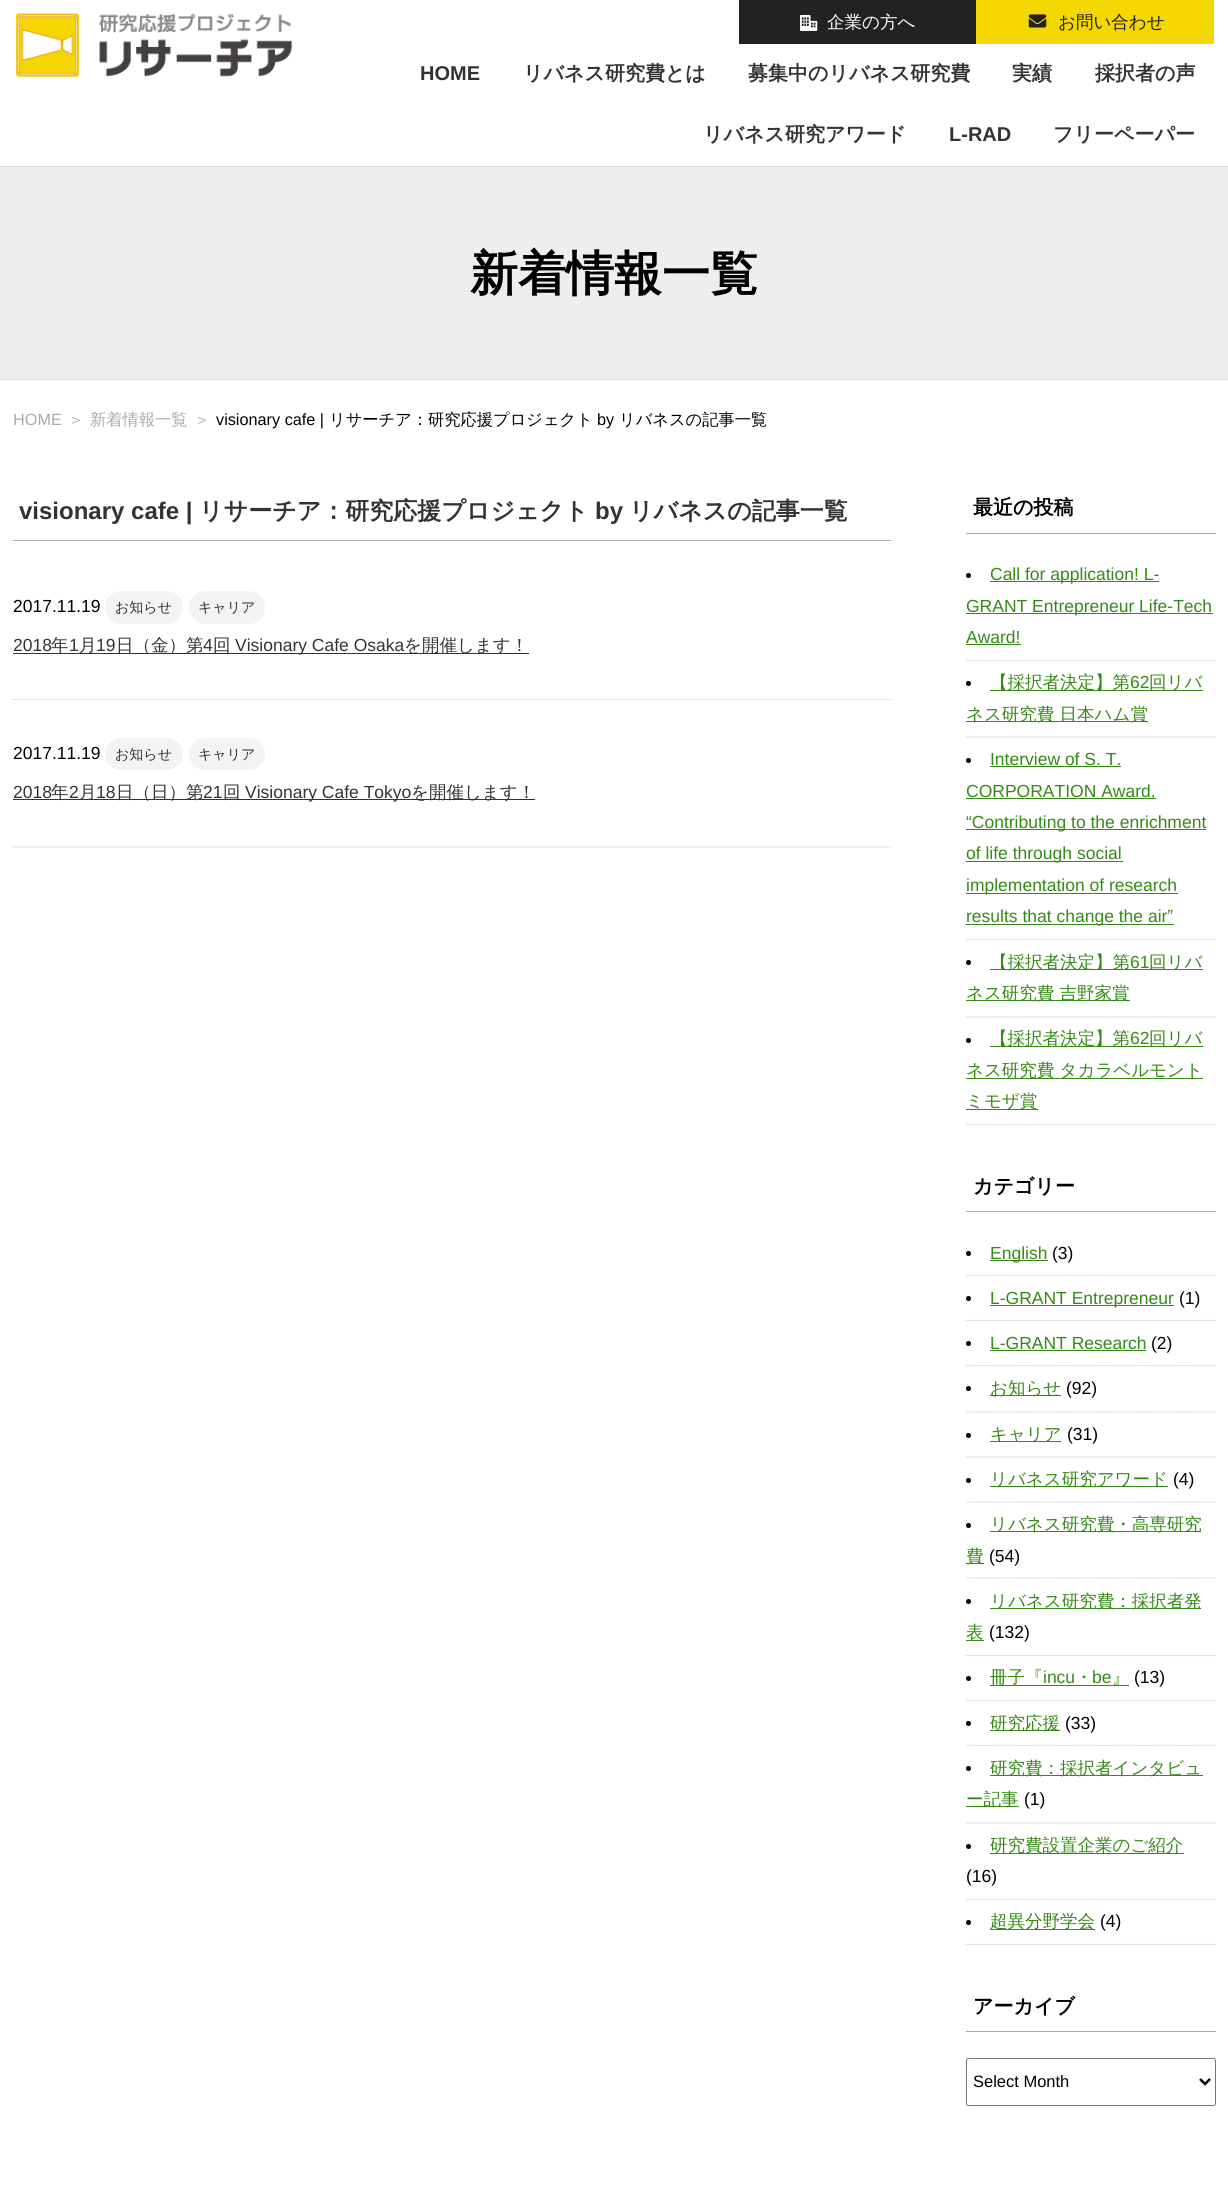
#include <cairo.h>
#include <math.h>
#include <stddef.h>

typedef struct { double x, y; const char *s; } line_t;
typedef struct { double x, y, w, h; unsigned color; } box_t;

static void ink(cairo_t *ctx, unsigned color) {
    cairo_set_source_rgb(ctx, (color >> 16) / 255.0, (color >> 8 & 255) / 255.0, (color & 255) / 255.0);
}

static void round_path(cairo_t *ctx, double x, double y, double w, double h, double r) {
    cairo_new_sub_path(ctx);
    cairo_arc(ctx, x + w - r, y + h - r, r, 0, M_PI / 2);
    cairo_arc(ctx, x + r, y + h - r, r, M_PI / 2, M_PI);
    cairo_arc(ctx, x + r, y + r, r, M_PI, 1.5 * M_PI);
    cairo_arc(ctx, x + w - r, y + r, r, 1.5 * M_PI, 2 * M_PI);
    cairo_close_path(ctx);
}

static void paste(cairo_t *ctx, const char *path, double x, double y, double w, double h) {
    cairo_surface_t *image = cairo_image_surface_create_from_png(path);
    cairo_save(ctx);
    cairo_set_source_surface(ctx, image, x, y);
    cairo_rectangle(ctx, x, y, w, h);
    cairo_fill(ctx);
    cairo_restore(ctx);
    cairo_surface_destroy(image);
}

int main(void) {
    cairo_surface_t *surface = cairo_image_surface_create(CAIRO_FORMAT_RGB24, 1228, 2206);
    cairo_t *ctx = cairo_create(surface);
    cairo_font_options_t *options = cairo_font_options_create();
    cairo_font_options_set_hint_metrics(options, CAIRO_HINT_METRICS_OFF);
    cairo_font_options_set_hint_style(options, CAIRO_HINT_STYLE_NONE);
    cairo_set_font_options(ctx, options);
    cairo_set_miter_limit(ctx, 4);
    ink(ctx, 0xFFFFFF);
    cairo_paint(ctx);
    paste(ctx, "media/1.png", 16, 13, 276, 64);
    ink(ctx, 0x222222);
    cairo_rectangle(ctx, 739, 0, 237, 44);
    cairo_fill(ctx);
    paste(ctx, "media/2.png", 800, 15, 18, 16);
    cairo_select_font_face(ctx, "WenQuanYi Zen Hei Medium", CAIRO_FONT_SLANT_NORMAL, CAIRO_FONT_WEIGHT_NORMAL);
    cairo_set_font_size(ctx, 17.5);
    ink(ctx, 0xFFFFFF);
    cairo_move_to(ctx, 827, 28);
    cairo_show_text(ctx, "企業の方へ");
    ink(ctx, 0xF4D600);
    cairo_rectangle(ctx, 976, 0, 238, 44);
    cairo_fill(ctx);
    paste(ctx, "media/3.png", 1028, 14, 19, 14);
    ink(ctx, 0x222222);
    cairo_move_to(ctx, 1058, 28);
    cairo_show_text(ctx, "お問い合わせ");
    cairo_select_font_face(ctx, "Liberation Sans", CAIRO_FONT_SLANT_NORMAL, CAIRO_FONT_WEIGHT_BOLD);
    cairo_set_font_size(ctx, 20);
    ink(ctx, 0x333333);
    cairo_move_to(ctx, 420, 80);
    cairo_show_text(ctx, "HOME");
    cairo_select_font_face(ctx, "WenQuanYi Zen Hei", CAIRO_FONT_SLANT_NORMAL, CAIRO_FONT_WEIGHT_BOLD);
    {
        static const line_t items[] = {
            {523, 80, "リバネス研究費とは"},
            {748, 80, "募集中のリバネス研究費"},
            {1012, 80, "実績"},
            {1095, 80, "採択者の声"},
            {703, 141, "リバネス研究アワード"},
        };
        for (size_t i = 0; i < sizeof items / sizeof *items; i++) {
            cairo_move_to(ctx, items[i].x, items[i].y);
            cairo_show_text(ctx, items[i].s);
        }
    }
    cairo_select_font_face(ctx, "Liberation Sans", CAIRO_FONT_SLANT_NORMAL, CAIRO_FONT_WEIGHT_BOLD);
    cairo_move_to(ctx, 949, 141);
    cairo_show_text(ctx, "L-RAD");
    cairo_select_font_face(ctx, "WenQuanYi Zen Hei", CAIRO_FONT_SLANT_NORMAL, CAIRO_FONT_WEIGHT_BOLD);
    cairo_move_to(ctx, 1053, 141);
    cairo_show_text(ctx, "フリーペーパー");
    {
        static const box_t items[] = {
            {0, 167, 1228, 212, 0xEEEEEE},
            {0, 166, 1228, 1, 0xDDDDDD},
            {0, 379, 1228, 1, 0xDDDDDD},
        };
        for (size_t i = 0; i < sizeof items / sizeof *items; i++) {
            ink(ctx, items[i].color);
            cairo_rectangle(ctx, items[i].x, items[i].y, items[i].w, items[i].h);
            cairo_fill(ctx);
        }
    }
    cairo_set_font_size(ctx, 48);
    ink(ctx, 0x000000);
    cairo_move_to(ctx, 470, 290);
    cairo_show_text(ctx, "新着情報一覧");
    cairo_select_font_face(ctx, "Liberation Sans", CAIRO_FONT_SLANT_NORMAL, CAIRO_FONT_WEIGHT_NORMAL);
    cairo_set_font_size(ctx, 16.25);
    ink(ctx, 0xAAAAAA);
    cairo_move_to(ctx, 13, 425);
    cairo_show_text(ctx, "HOME");
    cairo_select_font_face(ctx, "WenQuanYi Zen Hei Medium", CAIRO_FONT_SLANT_NORMAL, CAIRO_FONT_WEIGHT_NORMAL);
    {
        static const line_t items[] = {
            {68, 425, "＞"},
            {90, 425, "新着情報一覧"},
            {194, 425, "＞"},
        };
        for (size_t i = 0; i < sizeof items / sizeof *items; i++) {
            cairo_move_to(ctx, items[i].x, items[i].y);
            cairo_show_text(ctx, items[i].s);
        }
    }
    cairo_select_font_face(ctx, "Liberation Sans", CAIRO_FONT_SLANT_NORMAL, CAIRO_FONT_WEIGHT_NORMAL);
    ink(ctx, 0x000000);
    cairo_move_to(ctx, 216, 425);
    cairo_show_text(ctx, "visionary cafe |");
    cairo_select_font_face(ctx, "WenQuanYi Zen Hei Medium", CAIRO_FONT_SLANT_NORMAL, CAIRO_FONT_WEIGHT_NORMAL);
    cairo_move_to(ctx, 329, 425);
    cairo_show_text(ctx, "リサーチア：研究応援プロジェクト");
    cairo_select_font_face(ctx, "Liberation Sans", CAIRO_FONT_SLANT_NORMAL, CAIRO_FONT_WEIGHT_NORMAL);
    cairo_move_to(ctx, 597, 425);
    cairo_show_text(ctx, "by");
    cairo_select_font_face(ctx, "WenQuanYi Zen Hei Medium", CAIRO_FONT_SLANT_NORMAL, CAIRO_FONT_WEIGHT_NORMAL);
    cairo_move_to(ctx, 619, 425);
    cairo_show_text(ctx, "リバネスの記事一覧");
    ink(ctx, 0xAAAAAA);
    cairo_rectangle(ctx, 13, 540, 878, 1);
    cairo_fill(ctx);
    cairo_select_font_face(ctx, "Liberation Sans", CAIRO_FONT_SLANT_NORMAL, CAIRO_FONT_WEIGHT_BOLD);
    cairo_set_font_size(ctx, 24);
    ink(ctx, 0x333333);
    cairo_move_to(ctx, 19, 519);
    cairo_show_text(ctx, "visionary cafe |");
    cairo_select_font_face(ctx, "WenQuanYi Zen Hei", CAIRO_FONT_SLANT_NORMAL, CAIRO_FONT_WEIGHT_BOLD);
    cairo_move_to(ctx, 199, 519);
    cairo_show_text(ctx, "リサーチア：研究応援プロジェクト");
    cairo_select_font_face(ctx, "Liberation Sans", CAIRO_FONT_SLANT_NORMAL, CAIRO_FONT_WEIGHT_BOLD);
    cairo_move_to(ctx, 595, 519);
    cairo_show_text(ctx, "by");
    cairo_select_font_face(ctx, "WenQuanYi Zen Hei", CAIRO_FONT_SLANT_NORMAL, CAIRO_FONT_WEIGHT_BOLD);
    cairo_move_to(ctx, 629, 519);
    cairo_show_text(ctx, "リバネスの記事一覧");
    cairo_new_path(ctx);
    cairo_move_to(ctx, 12.5, 699.5);
    cairo_line_to(ctx, 891, 699.5);
    ink(ctx, 0xCCCCCC);
    cairo_set_line_width(ctx, 1.2);
    cairo_set_dash(ctx, (double[]){1.25, 1.25}, 2, 0);
    cairo_stroke(ctx);
    cairo_select_font_face(ctx, "Liberation Sans", CAIRO_FONT_SLANT_NORMAL, CAIRO_FONT_WEIGHT_NORMAL);
    cairo_set_font_size(ctx, 17.5);
    ink(ctx, 0x000000);
    cairo_move_to(ctx, 13, 612);
    cairo_show_text(ctx, "2017.11.19");
    ink(ctx, 0xF3F3F3);
    round_path(ctx, 105, 591, 78, 33, 16.5);
    cairo_fill(ctx);
    cairo_select_font_face(ctx, "WenQuanYi Zen Hei Medium", CAIRO_FONT_SLANT_NORMAL, CAIRO_FONT_WEIGHT_NORMAL);
    cairo_set_font_size(ctx, 14);
    ink(ctx, 0x333333);
    cairo_move_to(ctx, 115, 612);
    cairo_show_text(ctx, "お知らせ");
    ink(ctx, 0xF3F3F3);
    round_path(ctx, 189, 591, 76, 33, 16.5);
    cairo_fill(ctx);
    ink(ctx, 0x333333);
    cairo_move_to(ctx, 198, 612);
    cairo_show_text(ctx, "キャリア");
    cairo_select_font_face(ctx, "Liberation Sans", CAIRO_FONT_SLANT_NORMAL, CAIRO_FONT_WEIGHT_NORMAL);
    cairo_set_font_size(ctx, 17.5);
    cairo_move_to(ctx, 13, 651);
    cairo_show_text(ctx, "2018");
    cairo_rectangle(ctx, 13, 653, 516, 1);
    cairo_fill(ctx);
    cairo_select_font_face(ctx, "WenQuanYi Zen Hei Medium", CAIRO_FONT_SLANT_NORMAL, CAIRO_FONT_WEIGHT_NORMAL);
    cairo_move_to(ctx, 51, 651);
    cairo_show_text(ctx, "年");
    cairo_select_font_face(ctx, "Liberation Sans", CAIRO_FONT_SLANT_NORMAL, CAIRO_FONT_WEIGHT_NORMAL);
    cairo_move_to(ctx, 69, 651);
    cairo_show_text(ctx, "1");
    cairo_select_font_face(ctx, "WenQuanYi Zen Hei Medium", CAIRO_FONT_SLANT_NORMAL, CAIRO_FONT_WEIGHT_NORMAL);
    cairo_move_to(ctx, 79, 651);
    cairo_show_text(ctx, "月");
    cairo_select_font_face(ctx, "Liberation Sans", CAIRO_FONT_SLANT_NORMAL, CAIRO_FONT_WEIGHT_NORMAL);
    cairo_move_to(ctx, 96, 651);
    cairo_show_text(ctx, "19");
    cairo_select_font_face(ctx, "WenQuanYi Zen Hei Medium", CAIRO_FONT_SLANT_NORMAL, CAIRO_FONT_WEIGHT_NORMAL);
    cairo_move_to(ctx, 116, 651);
    cairo_show_text(ctx, "日（金）第");
    cairo_select_font_face(ctx, "Liberation Sans", CAIRO_FONT_SLANT_NORMAL, CAIRO_FONT_WEIGHT_NORMAL);
    cairo_move_to(ctx, 203, 651);
    cairo_show_text(ctx, "4");
    cairo_select_font_face(ctx, "WenQuanYi Zen Hei Medium", CAIRO_FONT_SLANT_NORMAL, CAIRO_FONT_WEIGHT_NORMAL);
    cairo_move_to(ctx, 213, 651);
    cairo_show_text(ctx, "回");
    cairo_select_font_face(ctx, "Liberation Sans", CAIRO_FONT_SLANT_NORMAL, CAIRO_FONT_WEIGHT_NORMAL);
    cairo_move_to(ctx, 235, 651);
    cairo_show_text(ctx, "Visionary Cafe Osaka");
    cairo_select_font_face(ctx, "WenQuanYi Zen Hei Medium", CAIRO_FONT_SLANT_NORMAL, CAIRO_FONT_WEIGHT_NORMAL);
    cairo_move_to(ctx, 404, 651);
    cairo_show_text(ctx, "を開催します！");
    cairo_new_path(ctx);
    cairo_move_to(ctx, 12.5, 847);
    cairo_line_to(ctx, 891, 847);
    ink(ctx, 0xCCCCCC);
    cairo_stroke(ctx);
    cairo_select_font_face(ctx, "Liberation Sans", CAIRO_FONT_SLANT_NORMAL, CAIRO_FONT_WEIGHT_NORMAL);
    ink(ctx, 0x000000);
    cairo_move_to(ctx, 13, 759);
    cairo_show_text(ctx, "2017.11.19");
    ink(ctx, 0xF3F3F3);
    round_path(ctx, 105, 738, 78, 32, 16);
    cairo_fill(ctx);
    cairo_select_font_face(ctx, "WenQuanYi Zen Hei Medium", CAIRO_FONT_SLANT_NORMAL, CAIRO_FONT_WEIGHT_NORMAL);
    cairo_set_font_size(ctx, 14);
    ink(ctx, 0x333333);
    cairo_move_to(ctx, 115, 759);
    cairo_show_text(ctx, "お知らせ");
    ink(ctx, 0xF3F3F3);
    round_path(ctx, 189, 738, 76, 32, 16);
    cairo_fill(ctx);
    ink(ctx, 0x333333);
    cairo_move_to(ctx, 198, 759);
    cairo_show_text(ctx, "キャリア");
    cairo_select_font_face(ctx, "Liberation Sans", CAIRO_FONT_SLANT_NORMAL, CAIRO_FONT_WEIGHT_NORMAL);
    cairo_set_font_size(ctx, 17.5);
    cairo_move_to(ctx, 13, 798);
    cairo_show_text(ctx, "2018");
    cairo_rectangle(ctx, 13, 799, 522, 1);
    cairo_fill(ctx);
    cairo_select_font_face(ctx, "WenQuanYi Zen Hei Medium", CAIRO_FONT_SLANT_NORMAL, CAIRO_FONT_WEIGHT_NORMAL);
    cairo_move_to(ctx, 51, 798);
    cairo_show_text(ctx, "年");
    cairo_select_font_face(ctx, "Liberation Sans", CAIRO_FONT_SLANT_NORMAL, CAIRO_FONT_WEIGHT_NORMAL);
    cairo_move_to(ctx, 69, 798);
    cairo_show_text(ctx, "2");
    cairo_select_font_face(ctx, "WenQuanYi Zen Hei Medium", CAIRO_FONT_SLANT_NORMAL, CAIRO_FONT_WEIGHT_NORMAL);
    cairo_move_to(ctx, 79, 798);
    cairo_show_text(ctx, "月");
    cairo_select_font_face(ctx, "Liberation Sans", CAIRO_FONT_SLANT_NORMAL, CAIRO_FONT_WEIGHT_NORMAL);
    cairo_move_to(ctx, 96, 798);
    cairo_show_text(ctx, "18");
    cairo_select_font_face(ctx, "WenQuanYi Zen Hei Medium", CAIRO_FONT_SLANT_NORMAL, CAIRO_FONT_WEIGHT_NORMAL);
    cairo_move_to(ctx, 116, 798);
    cairo_show_text(ctx, "日（日）第");
    cairo_select_font_face(ctx, "Liberation Sans", CAIRO_FONT_SLANT_NORMAL, CAIRO_FONT_WEIGHT_NORMAL);
    cairo_move_to(ctx, 203, 798);
    cairo_show_text(ctx, "21");
    cairo_select_font_face(ctx, "WenQuanYi Zen Hei Medium", CAIRO_FONT_SLANT_NORMAL, CAIRO_FONT_WEIGHT_NORMAL);
    cairo_move_to(ctx, 223, 798);
    cairo_show_text(ctx, "回");
    cairo_select_font_face(ctx, "Liberation Sans", CAIRO_FONT_SLANT_NORMAL, CAIRO_FONT_WEIGHT_NORMAL);
    cairo_move_to(ctx, 245, 798);
    cairo_show_text(ctx, "Visionary Cafe Tokyo");
    cairo_select_font_face(ctx, "WenQuanYi Zen Hei Medium", CAIRO_FONT_SLANT_NORMAL, CAIRO_FONT_WEIGHT_NORMAL);
    cairo_move_to(ctx, 411, 798);
    cairo_show_text(ctx, "を開催します！");
    ink(ctx, 0xAAAAAA);
    cairo_rectangle(ctx, 966, 533, 250, 1);
    cairo_fill(ctx);
    cairo_select_font_face(ctx, "WenQuanYi Zen Hei", CAIRO_FONT_SLANT_NORMAL, CAIRO_FONT_WEIGHT_BOLD);
    cairo_set_font_size(ctx, 20);
    ink(ctx, 0x000000);
    cairo_move_to(ctx, 973, 514);
    cairo_show_text(ctx, "最近の投稿");
    cairo_new_path(ctx);
    cairo_move_to(ctx, 966, 660.5);
    cairo_line_to(ctx, 1216, 660.5);
    ink(ctx, 0xCCCCCC);
    cairo_stroke(ctx);
    ink(ctx, 0x000000);
    cairo_arc(ctx, 968.5, 575.5, 2.5, 0, 2 * M_PI);
    cairo_fill(ctx);
    ink(ctx, 0x338A14);
    cairo_rectangle(ctx, 990, 581, 169, 1);
    cairo_fill(ctx);
    cairo_select_font_face(ctx, "Liberation Sans", CAIRO_FONT_SLANT_NORMAL, CAIRO_FONT_WEIGHT_NORMAL);
    cairo_set_font_size(ctx, 17.5);
    cairo_move_to(ctx, 990, 580);
    cairo_show_text(ctx, "Call for application! L-");
    cairo_rectangle(ctx, 966, 613, 247, 1);
    cairo_fill(ctx);
    cairo_move_to(ctx, 966, 612);
    cairo_show_text(ctx, "GRANT Entrepreneur Life-Tech");
    cairo_move_to(ctx, 966, 643);
    cairo_show_text(ctx, "Award!");
    cairo_rectangle(ctx, 966, 644, 55, 1);
    cairo_fill(ctx);
    cairo_new_path(ctx);
    cairo_move_to(ctx, 966, 737);
    cairo_line_to(ctx, 1216, 737);
    ink(ctx, 0xCCCCCC);
    cairo_stroke(ctx);
    ink(ctx, 0x000000);
    cairo_arc(ctx, 968.5, 683.5, 2.5, 0, 2 * M_PI);
    cairo_fill(ctx);
    ink(ctx, 0x338A14);
    cairo_rectangle(ctx, 990, 690, 213, 1);
    cairo_fill(ctx);
    cairo_select_font_face(ctx, "WenQuanYi Zen Hei Medium", CAIRO_FONT_SLANT_NORMAL, CAIRO_FONT_WEIGHT_NORMAL);
    cairo_move_to(ctx, 990, 688);
    cairo_show_text(ctx, "【採択者決定】第");
    cairo_select_font_face(ctx, "Liberation Sans", CAIRO_FONT_SLANT_NORMAL, CAIRO_FONT_WEIGHT_NORMAL);
    cairo_move_to(ctx, 1130, 688);
    cairo_show_text(ctx, "62");
    cairo_select_font_face(ctx, "WenQuanYi Zen Hei Medium", CAIRO_FONT_SLANT_NORMAL, CAIRO_FONT_WEIGHT_NORMAL);
    cairo_move_to(ctx, 1149, 688);
    cairo_show_text(ctx, "回リバ");
    cairo_rectangle(ctx, 966, 721, 182, 1);
    cairo_fill(ctx);
    cairo_move_to(ctx, 966, 720);
    cairo_show_text(ctx, "ネス研究費 日本ハム賞");
    cairo_new_path(ctx);
    cairo_move_to(ctx, 966, 939.5);
    cairo_line_to(ctx, 1216, 939.5);
    ink(ctx, 0xCCCCCC);
    cairo_stroke(ctx);
    ink(ctx, 0x000000);
    cairo_arc(ctx, 968.5, 760.5, 2.5, 0, 2 * M_PI);
    cairo_fill(ctx);
    cairo_select_font_face(ctx, "Liberation Sans", CAIRO_FONT_SLANT_NORMAL, CAIRO_FONT_WEIGHT_NORMAL);
    ink(ctx, 0x338A14);
    cairo_move_to(ctx, 990, 765);
    cairo_show_text(ctx, "Interview of S. T.");
    cairo_rectangle(ctx, 990, 766, 131, 1);
    cairo_fill(ctx);
    cairo_rectangle(ctx, 966, 798, 190, 1);
    cairo_fill(ctx);
    cairo_move_to(ctx, 966, 797);
    cairo_show_text(ctx, "CORPORATION Award,");
    cairo_rectangle(ctx, 966, 829, 240, 1);
    cairo_fill(ctx);
    cairo_move_to(ctx, 966, 828);
    cairo_show_text(ctx, "“Contributing to the enrichment");
    cairo_rectangle(ctx, 966, 861, 157, 1);
    cairo_fill(ctx);
    cairo_move_to(ctx, 966, 859);
    cairo_show_text(ctx, "of life through social");
    cairo_rectangle(ctx, 966, 893, 212, 1);
    cairo_fill(ctx);
    cairo_move_to(ctx, 966, 891);
    cairo_show_text(ctx, "implementation of research");
    cairo_rectangle(ctx, 966, 924, 208, 1);
    cairo_fill(ctx);
    cairo_move_to(ctx, 966, 922);
    cairo_show_text(ctx, "results that change the air”");
    cairo_new_path(ctx);
    cairo_move_to(ctx, 966, 1017);
    cairo_line_to(ctx, 1216, 1017);
    ink(ctx, 0xCCCCCC);
    cairo_stroke(ctx);
    ink(ctx, 0x000000);
    cairo_arc(ctx, 968.5, 962.5, 2.5, 0, 2 * M_PI);
    cairo_fill(ctx);
    ink(ctx, 0x338A14);
    cairo_rectangle(ctx, 990, 969, 213, 1);
    cairo_fill(ctx);
    cairo_select_font_face(ctx, "WenQuanYi Zen Hei Medium", CAIRO_FONT_SLANT_NORMAL, CAIRO_FONT_WEIGHT_NORMAL);
    cairo_move_to(ctx, 990, 968);
    cairo_show_text(ctx, "【採択者決定】第");
    cairo_select_font_face(ctx, "Liberation Sans", CAIRO_FONT_SLANT_NORMAL, CAIRO_FONT_WEIGHT_NORMAL);
    cairo_move_to(ctx, 1130, 968);
    cairo_show_text(ctx, "61");
    cairo_select_font_face(ctx, "WenQuanYi Zen Hei Medium", CAIRO_FONT_SLANT_NORMAL, CAIRO_FONT_WEIGHT_NORMAL);
    cairo_move_to(ctx, 1149, 968);
    cairo_show_text(ctx, "回リバ");
    cairo_rectangle(ctx, 966, 1000, 164, 1);
    cairo_fill(ctx);
    cairo_move_to(ctx, 966, 999);
    cairo_show_text(ctx, "ネス研究費 吉野家賞");
    cairo_new_path(ctx);
    cairo_move_to(ctx, 966, 1124.5);
    cairo_line_to(ctx, 1216, 1124.5);
    ink(ctx, 0xCCCCCC);
    cairo_stroke(ctx);
    ink(ctx, 0x000000);
    cairo_arc(ctx, 968.5, 1040.5, 2.5, 0, 2 * M_PI);
    cairo_fill(ctx);
    ink(ctx, 0x338A14);
    cairo_rectangle(ctx, 990, 1046, 213, 1);
    cairo_fill(ctx);
    cairo_move_to(ctx, 990, 1044);
    cairo_show_text(ctx, "【採択者決定】第");
    cairo_select_font_face(ctx, "Liberation Sans", CAIRO_FONT_SLANT_NORMAL, CAIRO_FONT_WEIGHT_NORMAL);
    cairo_move_to(ctx, 1130, 1044);
    cairo_show_text(ctx, "62");
    cairo_select_font_face(ctx, "WenQuanYi Zen Hei Medium", CAIRO_FONT_SLANT_NORMAL, CAIRO_FONT_WEIGHT_NORMAL);
    cairo_move_to(ctx, 1149, 1044);
    cairo_show_text(ctx, "回リバ");
    cairo_rectangle(ctx, 966, 1078, 237, 1);
    cairo_fill(ctx);
    cairo_move_to(ctx, 966, 1076);
    cairo_show_text(ctx, "ネス研究費 タカラベルモント");
    cairo_rectangle(ctx, 966, 1109, 72, 1);
    cairo_fill(ctx);
    cairo_move_to(ctx, 966, 1107);
    cairo_show_text(ctx, "ミモザ賞");
    ink(ctx, 0xAAAAAA);
    cairo_rectangle(ctx, 966, 1211, 250, 1);
    cairo_fill(ctx);
    cairo_select_font_face(ctx, "WenQuanYi Zen Hei", CAIRO_FONT_SLANT_NORMAL, CAIRO_FONT_WEIGHT_BOLD);
    cairo_set_font_size(ctx, 20);
    ink(ctx, 0x000000);
    cairo_move_to(ctx, 973, 1193);
    cairo_show_text(ctx, "カテゴリー");
    cairo_new_path(ctx);
    cairo_move_to(ctx, 966, 1275.5);
    cairo_line_to(ctx, 1216, 1275.5);
    ink(ctx, 0xCCCCCC);
    cairo_stroke(ctx);
    ink(ctx, 0x000000);
    cairo_arc(ctx, 968.5, 1253.5, 2.5, 0, 2 * M_PI);
    cairo_fill(ctx);
    ink(ctx, 0x338A14);
    cairo_rectangle(ctx, 990, 1260, 58, 1);
    cairo_fill(ctx);
    cairo_select_font_face(ctx, "Liberation Sans", CAIRO_FONT_SLANT_NORMAL, CAIRO_FONT_WEIGHT_NORMAL);
    cairo_set_font_size(ctx, 17.5);
    cairo_move_to(ctx, 990, 1259);
    cairo_show_text(ctx, "English");
    ink(ctx, 0x000000);
    cairo_move_to(ctx, 1052, 1259);
    cairo_show_text(ctx, "(3)");
    cairo_new_path(ctx);
    cairo_move_to(ctx, 966, 1320.5);
    cairo_line_to(ctx, 1216, 1320.5);
    ink(ctx, 0xCCCCCC);
    cairo_stroke(ctx);
    ink(ctx, 0x000000);
    cairo_arc(ctx, 968.5, 1298.5, 2.5, 0, 2 * M_PI);
    cairo_fill(ctx);
    ink(ctx, 0x338A14);
    cairo_rectangle(ctx, 990, 1305, 184, 1);
    cairo_fill(ctx);
    cairo_move_to(ctx, 990, 1304);
    cairo_show_text(ctx, "L-GRANT Entrepreneur");
    ink(ctx, 0x000000);
    cairo_move_to(ctx, 1179, 1304);
    cairo_show_text(ctx, "(1)");
    cairo_new_path(ctx);
    cairo_move_to(ctx, 966, 1365.5);
    cairo_line_to(ctx, 1216, 1365.5);
    ink(ctx, 0xCCCCCC);
    cairo_stroke(ctx);
    ink(ctx, 0x000000);
    cairo_arc(ctx, 968.5, 1343.5, 2.5, 0, 2 * M_PI);
    cairo_fill(ctx);
    ink(ctx, 0x338A14);
    cairo_move_to(ctx, 990, 1349);
    cairo_show_text(ctx, "L-GRANT Research");
    cairo_rectangle(ctx, 990, 1350, 156, 1);
    cairo_fill(ctx);
    ink(ctx, 0x000000);
    cairo_move_to(ctx, 1151, 1349);
    cairo_show_text(ctx, "(2)");
    cairo_new_path(ctx);
    cairo_move_to(ctx, 966, 1412);
    cairo_line_to(ctx, 1216, 1412);
    ink(ctx, 0xCCCCCC);
    cairo_stroke(ctx);
    ink(ctx, 0x000000);
    cairo_arc(ctx, 968.5, 1388.5, 2.5, 0, 2 * M_PI);
    cairo_fill(ctx);
    ink(ctx, 0x338A14);
    cairo_rectangle(ctx, 990, 1395, 71, 1);
    cairo_fill(ctx);
    cairo_select_font_face(ctx, "WenQuanYi Zen Hei Medium", CAIRO_FONT_SLANT_NORMAL, CAIRO_FONT_WEIGHT_NORMAL);
    cairo_move_to(ctx, 990, 1394);
    cairo_show_text(ctx, "お知らせ");
    cairo_select_font_face(ctx, "Liberation Sans", CAIRO_FONT_SLANT_NORMAL, CAIRO_FONT_WEIGHT_NORMAL);
    ink(ctx, 0x000000);
    cairo_move_to(ctx, 1066, 1394);
    cairo_show_text(ctx, "(92)");
    cairo_new_path(ctx);
    cairo_move_to(ctx, 966, 1457);
    cairo_line_to(ctx, 1216, 1457);
    ink(ctx, 0xCCCCCC);
    cairo_stroke(ctx);
    ink(ctx, 0x000000);
    cairo_arc(ctx, 968.5, 1435.5, 2.5, 0, 2 * M_PI);
    cairo_fill(ctx);
    ink(ctx, 0x338A14);
    cairo_rectangle(ctx, 990, 1441, 71, 1);
    cairo_fill(ctx);
    cairo_select_font_face(ctx, "WenQuanYi Zen Hei Medium", CAIRO_FONT_SLANT_NORMAL, CAIRO_FONT_WEIGHT_NORMAL);
    cairo_move_to(ctx, 990, 1440);
    cairo_show_text(ctx, "キャリア");
    cairo_select_font_face(ctx, "Liberation Sans", CAIRO_FONT_SLANT_NORMAL, CAIRO_FONT_WEIGHT_NORMAL);
    ink(ctx, 0x000000);
    cairo_move_to(ctx, 1067, 1440);
    cairo_show_text(ctx, "(31)");
    cairo_new_path(ctx);
    cairo_move_to(ctx, 966, 1502);
    cairo_line_to(ctx, 1216, 1502);
    ink(ctx, 0xCCCCCC);
    cairo_stroke(ctx);
    ink(ctx, 0x000000);
    cairo_arc(ctx, 968.5, 1480.5, 2.5, 0, 2 * M_PI);
    cairo_fill(ctx);
    ink(ctx, 0x338A14);
    cairo_rectangle(ctx, 990, 1486, 178, 1);
    cairo_fill(ctx);
    cairo_select_font_face(ctx, "WenQuanYi Zen Hei Medium", CAIRO_FONT_SLANT_NORMAL, CAIRO_FONT_WEIGHT_NORMAL);
    cairo_move_to(ctx, 990, 1485);
    cairo_show_text(ctx, "リバネス研究アワード");
    cairo_select_font_face(ctx, "Liberation Sans", CAIRO_FONT_SLANT_NORMAL, CAIRO_FONT_WEIGHT_NORMAL);
    ink(ctx, 0x000000);
    cairo_move_to(ctx, 1173, 1485);
    cairo_show_text(ctx, "(4)");
    cairo_new_path(ctx);
    cairo_move_to(ctx, 966, 1578);
    cairo_line_to(ctx, 1216, 1578);
    ink(ctx, 0xCCCCCC);
    cairo_stroke(ctx);
    ink(ctx, 0x000000);
    cairo_arc(ctx, 968.5, 1525.5, 2.5, 0, 2 * M_PI);
    cairo_fill(ctx);
    ink(ctx, 0x338A14);
    cairo_rectangle(ctx, 990, 1531, 211, 1);
    cairo_fill(ctx);
    cairo_select_font_face(ctx, "WenQuanYi Zen Hei Medium", CAIRO_FONT_SLANT_NORMAL, CAIRO_FONT_WEIGHT_NORMAL);
    cairo_move_to(ctx, 990, 1530);
    cairo_show_text(ctx, "リバネス研究費・高専研究");
    cairo_rectangle(ctx, 966, 1563, 18, 1);
    cairo_fill(ctx);
    cairo_move_to(ctx, 966, 1562);
    cairo_show_text(ctx, "費");
    cairo_select_font_face(ctx, "Liberation Sans", CAIRO_FONT_SLANT_NORMAL, CAIRO_FONT_WEIGHT_NORMAL);
    ink(ctx, 0x000000);
    cairo_move_to(ctx, 989, 1562);
    cairo_show_text(ctx, "(54)");
    cairo_new_path(ctx);
    cairo_move_to(ctx, 966, 1655.5);
    cairo_line_to(ctx, 1216, 1655.5);
    ink(ctx, 0xCCCCCC);
    cairo_stroke(ctx);
    ink(ctx, 0x000000);
    cairo_arc(ctx, 968.5, 1601.5, 2.5, 0, 2 * M_PI);
    cairo_fill(ctx);
    ink(ctx, 0x338A14);
    cairo_rectangle(ctx, 990, 1608, 211, 1);
    cairo_fill(ctx);
    cairo_select_font_face(ctx, "WenQuanYi Zen Hei Medium", CAIRO_FONT_SLANT_NORMAL, CAIRO_FONT_WEIGHT_NORMAL);
    cairo_move_to(ctx, 990, 1607);
    cairo_show_text(ctx, "リバネス研究費：採択者発");
    cairo_rectangle(ctx, 966, 1640, 18, 1);
    cairo_fill(ctx);
    cairo_move_to(ctx, 966, 1638);
    cairo_show_text(ctx, "表");
    cairo_select_font_face(ctx, "Liberation Sans", CAIRO_FONT_SLANT_NORMAL, CAIRO_FONT_WEIGHT_NORMAL);
    ink(ctx, 0x000000);
    cairo_move_to(ctx, 989, 1638);
    cairo_show_text(ctx, "(132)");
    cairo_new_path(ctx);
    cairo_move_to(ctx, 966, 1700.5);
    cairo_line_to(ctx, 1216, 1700.5);
    ink(ctx, 0xCCCCCC);
    cairo_stroke(ctx);
    ink(ctx, 0x000000);
    cairo_arc(ctx, 968.5, 1678.5, 2.5, 0, 2 * M_PI);
    cairo_fill(ctx);
    ink(ctx, 0x338A14);
    cairo_rectangle(ctx, 990, 1685, 139, 1);
    cairo_fill(ctx);
    cairo_select_font_face(ctx, "WenQuanYi Zen Hei Medium", CAIRO_FONT_SLANT_NORMAL, CAIRO_FONT_WEIGHT_NORMAL);
    cairo_move_to(ctx, 990, 1683);
    cairo_show_text(ctx, "冊子『");
    cairo_select_font_face(ctx, "Liberation Sans", CAIRO_FONT_SLANT_NORMAL, CAIRO_FONT_WEIGHT_NORMAL);
    cairo_move_to(ctx, 1043, 1683);
    cairo_show_text(ctx, "incu");
    cairo_select_font_face(ctx, "WenQuanYi Zen Hei Medium", CAIRO_FONT_SLANT_NORMAL, CAIRO_FONT_WEIGHT_NORMAL);
    cairo_move_to(ctx, 1075, 1683);
    cairo_show_text(ctx, "・");
    cairo_select_font_face(ctx, "Liberation Sans", CAIRO_FONT_SLANT_NORMAL, CAIRO_FONT_WEIGHT_NORMAL);
    cairo_move_to(ctx, 1092, 1683);
    cairo_show_text(ctx, "be");
    cairo_select_font_face(ctx, "WenQuanYi Zen Hei Medium", CAIRO_FONT_SLANT_NORMAL, CAIRO_FONT_WEIGHT_NORMAL);
    cairo_move_to(ctx, 1112, 1683);
    cairo_show_text(ctx, "』");
    cairo_select_font_face(ctx, "Liberation Sans", CAIRO_FONT_SLANT_NORMAL, CAIRO_FONT_WEIGHT_NORMAL);
    ink(ctx, 0x000000);
    cairo_move_to(ctx, 1134, 1683);
    cairo_show_text(ctx, "(13)");
    cairo_new_path(ctx);
    cairo_move_to(ctx, 966, 1745.5);
    cairo_line_to(ctx, 1216, 1745.5);
    ink(ctx, 0xCCCCCC);
    cairo_stroke(ctx);
    ink(ctx, 0x000000);
    cairo_arc(ctx, 968.5, 1723.5, 2.5, 0, 2 * M_PI);
    cairo_fill(ctx);
    ink(ctx, 0x338A14);
    cairo_rectangle(ctx, 990, 1730, 70, 1);
    cairo_fill(ctx);
    cairo_select_font_face(ctx, "WenQuanYi Zen Hei Medium", CAIRO_FONT_SLANT_NORMAL, CAIRO_FONT_WEIGHT_NORMAL);
    cairo_move_to(ctx, 990, 1729);
    cairo_show_text(ctx, "研究応援");
    cairo_select_font_face(ctx, "Liberation Sans", CAIRO_FONT_SLANT_NORMAL, CAIRO_FONT_WEIGHT_NORMAL);
    ink(ctx, 0x000000);
    cairo_move_to(ctx, 1065, 1729);
    cairo_show_text(ctx, "(33)");
    cairo_new_path(ctx);
    cairo_move_to(ctx, 966, 1823);
    cairo_line_to(ctx, 1216, 1823);
    ink(ctx, 0xCCCCCC);
    cairo_stroke(ctx);
    ink(ctx, 0x000000);
    cairo_arc(ctx, 968.5, 1768.5, 2.5, 0, 2 * M_PI);
    cairo_fill(ctx);
    ink(ctx, 0x338A14);
    cairo_rectangle(ctx, 990, 1775, 213, 1);
    cairo_fill(ctx);
    cairo_select_font_face(ctx, "WenQuanYi Zen Hei Medium", CAIRO_FONT_SLANT_NORMAL, CAIRO_FONT_WEIGHT_NORMAL);
    cairo_move_to(ctx, 990, 1774);
    cairo_show_text(ctx, "研究費：採択者インタビュ");
    cairo_rectangle(ctx, 966, 1806, 53, 1);
    cairo_fill(ctx);
    cairo_move_to(ctx, 966, 1805);
    cairo_show_text(ctx, "ー記事");
    cairo_select_font_face(ctx, "Liberation Sans", CAIRO_FONT_SLANT_NORMAL, CAIRO_FONT_WEIGHT_NORMAL);
    ink(ctx, 0x000000);
    cairo_move_to(ctx, 1024, 1805);
    cairo_show_text(ctx, "(1)");
    cairo_new_path(ctx);
    cairo_move_to(ctx, 966, 1899.5);
    cairo_line_to(ctx, 1216, 1899.5);
    ink(ctx, 0xCCCCCC);
    cairo_stroke(ctx);
    ink(ctx, 0x000000);
    cairo_arc(ctx, 968.5, 1846.5, 2.5, 0, 2 * M_PI);
    cairo_fill(ctx);
    ink(ctx, 0x338A14);
    cairo_rectangle(ctx, 990, 1853, 194, 1);
    cairo_fill(ctx);
    cairo_select_font_face(ctx, "WenQuanYi Zen Hei Medium", CAIRO_FONT_SLANT_NORMAL, CAIRO_FONT_WEIGHT_NORMAL);
    cairo_move_to(ctx, 990, 1851);
    cairo_show_text(ctx, "研究費設置企業のご紹介");
    cairo_select_font_face(ctx, "Liberation Sans", CAIRO_FONT_SLANT_NORMAL, CAIRO_FONT_WEIGHT_NORMAL);
    ink(ctx, 0x000000);
    cairo_move_to(ctx, 966, 1882);
    cairo_show_text(ctx, "(16)");
    cairo_new_path(ctx);
    cairo_move_to(ctx, 966, 1944.5);
    cairo_line_to(ctx, 1216, 1944.5);
    ink(ctx, 0xCCCCCC);
    cairo_stroke(ctx);
    ink(ctx, 0x000000);
    cairo_arc(ctx, 968.5, 1922.5, 2.5, 0, 2 * M_PI);
    cairo_fill(ctx);
    ink(ctx, 0x338A14);
    cairo_rectangle(ctx, 990, 1929, 105, 1);
    cairo_fill(ctx);
    cairo_select_font_face(ctx, "WenQuanYi Zen Hei Medium", CAIRO_FONT_SLANT_NORMAL, CAIRO_FONT_WEIGHT_NORMAL);
    cairo_move_to(ctx, 990, 1927);
    cairo_show_text(ctx, "超異分野学会");
    cairo_select_font_face(ctx, "Liberation Sans", CAIRO_FONT_SLANT_NORMAL, CAIRO_FONT_WEIGHT_NORMAL);
    ink(ctx, 0x000000);
    cairo_move_to(ctx, 1100, 1927);
    cairo_show_text(ctx, "(4)");
    ink(ctx, 0xAAAAAA);
    cairo_rectangle(ctx, 966, 2031, 250, 1);
    cairo_fill(ctx);
    cairo_select_font_face(ctx, "WenQuanYi Zen Hei", CAIRO_FONT_SLANT_NORMAL, CAIRO_FONT_WEIGHT_BOLD);
    cairo_set_font_size(ctx, 20);
    ink(ctx, 0x000000);
    cairo_move_to(ctx, 973, 2013);
    cairo_show_text(ctx, "アーカイブ");
    round_path(ctx, 966.5, 2058.5, 249, 47, 2);
    ink(ctx, 0x767676);
    cairo_set_line_width(ctx, 1);
    cairo_set_dash(ctx, NULL, 0, 0);
    cairo_stroke(ctx);
    cairo_new_path(ctx);
    cairo_move_to(ctx, 1200, 2079);
    cairo_line_to(ctx, 1205, 2084);
    cairo_line_to(ctx, 1210, 2079);
    ink(ctx, 0x000000);
    cairo_set_line_width(ctx, 2.5);
    cairo_stroke(ctx);
    cairo_select_font_face(ctx, "Liberation Sans", CAIRO_FONT_SLANT_NORMAL, CAIRO_FONT_WEIGHT_NORMAL);
    cairo_set_font_size(ctx, 16.5);
    cairo_move_to(ctx, 973, 2087);
    cairo_show_text(ctx, "Select Month");
    cairo_surface_write_to_png(surface, "image.png");
    cairo_font_options_destroy(options);
    cairo_destroy(ctx);
    cairo_surface_destroy(surface);
    return 0;
}
